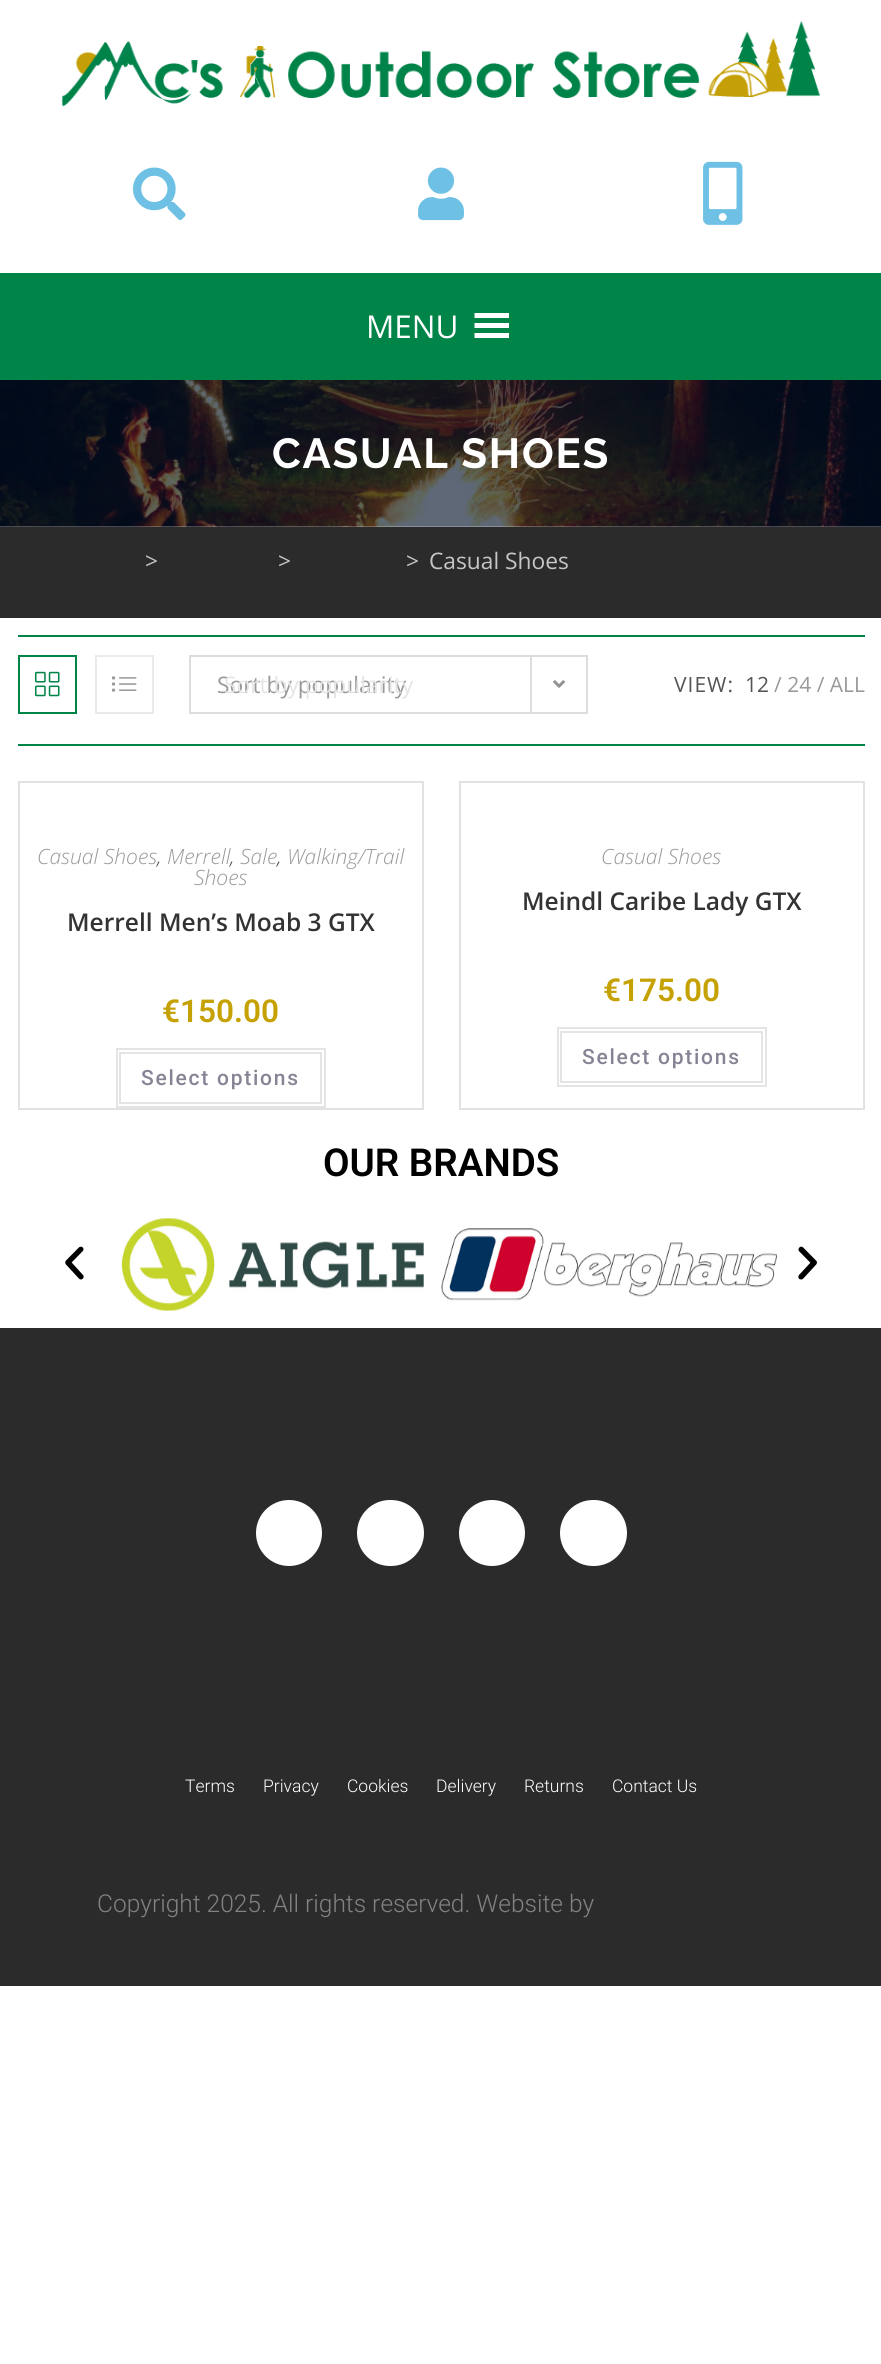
#include <cairo.h>
#include <math.h>
#include <stddef.h>

typedef struct { double x, y; const char *s; } line_t;

static void ink(cairo_t *ctx, unsigned color) {
    cairo_set_source_rgb(ctx, (color >> 16) / 255.0, (color >> 8 & 255) / 255.0, (color & 255) / 255.0);
}

static void write_spaced(cairo_t *ctx, double x, double y, const char *s, double letter, double word) {
    cairo_move_to(ctx, x, y);
    while (*s) {
        char ch[5] = {0};
        int n = 0;
        do ch[n++] = *s++; while ((*s & 0xC0) == 0x80);
        cairo_show_text(ctx, ch);
        cairo_rel_move_to(ctx, letter + word * (*ch == ' '), 0);
    }
}

static void round_path(cairo_t *ctx, double x, double y, double w, double h, double r) {
    cairo_new_sub_path(ctx);
    cairo_arc(ctx, x + w - r, y + h - r, r, 0, M_PI / 2);
    cairo_arc(ctx, x + r, y + h - r, r, M_PI / 2, M_PI);
    cairo_arc(ctx, x + r, y + r, r, M_PI, 1.5 * M_PI);
    cairo_arc(ctx, x + w - r, y + r, r, 1.5 * M_PI, 2 * M_PI);
    cairo_close_path(ctx);
}

static void paste(cairo_t *ctx, const char *path, double x, double y, double w, double h) {
    cairo_surface_t *image = cairo_image_surface_create_from_png(path);
    cairo_save(ctx);
    cairo_set_source_surface(ctx, image, x, y);
    cairo_rectangle(ctx, x, y, w, h);
    cairo_fill(ctx);
    cairo_restore(ctx);
    cairo_surface_destroy(image);
}

int main(void) {
    cairo_surface_t *surface = cairo_image_surface_create(CAIRO_FORMAT_RGB24, 881, 2364);
    cairo_t *ctx = cairo_create(surface);
    cairo_font_options_t *options = cairo_font_options_create();
    cairo_font_options_set_hint_metrics(options, CAIRO_HINT_METRICS_OFF);
    cairo_font_options_set_hint_style(options, CAIRO_HINT_STYLE_NONE);
    cairo_set_font_options(ctx, options);
    cairo_set_miter_limit(ctx, 4);
    ink(ctx, 0xFFFFFF);
    cairo_paint(ctx);
    ink(ctx, 0x008448);
    cairo_rectangle(ctx, 0, 273, 881, 107);
    cairo_fill(ctx);
    paste(ctx, "media/1.png", 61, 21, 759, 86);
    paste(ctx, "media/2.png", 133, 167, 53, 53);
    paste(ctx, "media/3.png", 418, 167, 46, 54);
    paste(ctx, "media/4.png", 703, 161, 40, 64);
    cairo_select_font_face(ctx, "Open Sans", CAIRO_FONT_SLANT_NORMAL, CAIRO_FONT_WEIGHT_NORMAL);
    cairo_set_font_size(ctx, 31.5);
    ink(ctx, 0xFFFFFF);
    cairo_move_to(ctx, 366, 338);
    cairo_show_text(ctx, "MENU");
    cairo_new_path(ctx);
    cairo_move_to(ctx, 474.5, 338);
    cairo_line_to(ctx, 509, 338);
    cairo_line_to(ctx, 509, 333);
    cairo_line_to(ctx, 474.5, 333);
    cairo_close_path(ctx);
    cairo_move_to(ctx, 474.5, 313);
    cairo_line_to(ctx, 474.5, 318);
    cairo_line_to(ctx, 509, 318);
    cairo_line_to(ctx, 509, 313);
    cairo_close_path(ctx);
    cairo_move_to(ctx, 474.5, 328);
    cairo_line_to(ctx, 509, 328);
    cairo_line_to(ctx, 509, 323);
    cairo_line_to(ctx, 474.5, 323);
    cairo_close_path(ctx);
    cairo_fill(ctx);
    paste(ctx, "media/5.png", 0, 380, 881, 147);
    cairo_select_font_face(ctx, "Raleway", CAIRO_FONT_SLANT_NORMAL, CAIRO_FONT_WEIGHT_BOLD);
    cairo_set_font_size(ctx, 42);
    write_spaced(ctx, 272, 468, "CASUAL SHOES", 1.75, 0);
    ink(ctx, 0x2B2B2B);
    cairo_rectangle(ctx, 0, 527, 881, 91);
    cairo_fill(ctx);
    cairo_select_font_face(ctx, "Open Sans", CAIRO_FONT_SLANT_NORMAL, CAIRO_FONT_WEIGHT_NORMAL);
    cairo_set_font_size(ctx, 22.75);
    ink(ctx, 0xC6C6C6);
    {
        static const line_t items[] = {
            {145, 569, ">"},
            {278, 569, ">"},
            {406, 569, ">"},
            {429, 569, "Casual Shoes"},
        };
        for (size_t i = 0; i < sizeof items / sizeof *items; i++) {
            cairo_move_to(ctx, items[i].x, items[i].y);
            cairo_show_text(ctx, items[i].s);
        }
    }
    ink(ctx, 0x008448);
    cairo_rectangle(ctx, 18, 635, 847, 2);
    cairo_fill(ctx);
    cairo_rectangle(ctx, 18, 744, 847, 2);
    cairo_fill(ctx);
    cairo_rectangle(ctx, 19, 656, 57, 57);
    cairo_stroke(ctx);
    paste(ctx, "media/6.png", 35, 671, 25, 26);
    cairo_rectangle(ctx, 96, 656, 57, 57);
    ink(ctx, 0xEAEAEA);
    cairo_stroke(ctx);
    paste(ctx, "media/7.png", 112, 676, 25, 16);
    cairo_rectangle(ctx, 190, 656, 397, 57);
    ink(ctx, 0xDDDDDD);
    cairo_stroke(ctx);
    ink(ctx, 0x999999);
    cairo_move_to(ctx, 217, 693);
    cairo_show_text(ctx, "Sort by popularity");
    ink(ctx, 0xDDDDDD);
    cairo_rectangle(ctx, 530, 656, 2, 56);
    cairo_fill(ctx);
    paste(ctx, "media/8.png", 553, 680, 12, 8);
    ink(ctx, 0xE5E5E5);
    cairo_move_to(ctx, 224, 693);
    cairo_show_text(ctx, "Sort by popularity");
    cairo_set_font_size(ctx, 21);
    ink(ctx, 0x555555);
    write_spaced(ctx, 674, 692, "VIEW:", 1, 0);
    cairo_move_to(ctx, 745, 692);
    cairo_show_text(ctx, "12");
    ink(ctx, 0x999999);
    cairo_move_to(ctx, 774, 692);
    cairo_show_text(ctx, "/ 24 / ALL");
    cairo_rectangle(ctx, 19, 782, 404, 327);
    ink(ctx, 0xE2E2E2);
    cairo_stroke(ctx);
    cairo_select_font_face(ctx, "Open Sans Light", CAIRO_FONT_SLANT_ITALIC, CAIRO_FONT_WEIGHT_NORMAL);
    ink(ctx, 0x999999);
    cairo_move_to(ctx, 37, 864);
    cairo_show_text(ctx, "Casual Shoes");
    ink(ctx, 0x4A4A4A);
    cairo_move_to(ctx, 157, 864);
    cairo_show_text(ctx, ",");
    ink(ctx, 0x999999);
    {
        static const line_t items[] = {
            {167, 864, "Merrell"},
            {240, 864, "Sale"},
            {287, 864, "Walking/Trail"},
        };
        for (size_t i = 0; i < sizeof items / sizeof *items; i++) {
            cairo_move_to(ctx, items[i].x, items[i].y);
            cairo_show_text(ctx, items[i].s);
        }
    }
    ink(ctx, 0x4A4A4A);
    cairo_move_to(ctx, 230, 864);
    cairo_show_text(ctx, ",");
    cairo_move_to(ctx, 277, 864);
    cairo_show_text(ctx, ",");
    ink(ctx, 0x999999);
    cairo_move_to(ctx, 194, 885);
    cairo_show_text(ctx, "Shoes");
    cairo_select_font_face(ctx, "Open Sans SemiBold", CAIRO_FONT_SLANT_NORMAL, CAIRO_FONT_WEIGHT_NORMAL);
    cairo_set_font_size(ctx, 24.5);
    ink(ctx, 0x333333);
    cairo_move_to(ctx, 67, 931);
    cairo_show_text(ctx, "Merrell Men’s Moab 3 GTX");
    cairo_select_font_face(ctx, "Roboto SemiBold", CAIRO_FONT_SLANT_NORMAL, CAIRO_FONT_WEIGHT_NORMAL);
    cairo_set_font_size(ctx, 31.5);
    ink(ctx, 0xC5A102);
    cairo_move_to(ctx, 162, 1022);
    cairo_show_text(ctx, "€150.00");
    cairo_rectangle(ctx, 117, 1049, 208, 58);
    ink(ctx, 0xE4E4E4);
    cairo_stroke(ctx);
    cairo_rectangle(ctx, 120, 1053, 201, 50);
    cairo_stroke(ctx);
    cairo_select_font_face(ctx, "Roboto Medium", CAIRO_FONT_SLANT_NORMAL, CAIRO_FONT_WEIGHT_NORMAL);
    cairo_set_font_size(ctx, 21);
    ink(ctx, 0x848494);
    write_spaced(ctx, 141, 1085, "Select options", 1.75, 0);
    cairo_rectangle(ctx, 460, 782, 404, 327);
    ink(ctx, 0xE2E2E2);
    cairo_stroke(ctx);
    cairo_select_font_face(ctx, "Open Sans Light", CAIRO_FONT_SLANT_ITALIC, CAIRO_FONT_WEIGHT_NORMAL);
    ink(ctx, 0x999999);
    cairo_move_to(ctx, 601, 864);
    cairo_show_text(ctx, "Casual Shoes");
    cairo_select_font_face(ctx, "Open Sans SemiBold", CAIRO_FONT_SLANT_NORMAL, CAIRO_FONT_WEIGHT_NORMAL);
    cairo_set_font_size(ctx, 24.5);
    ink(ctx, 0x333333);
    cairo_move_to(ctx, 522, 910);
    cairo_show_text(ctx, "Meindl Caribe Lady GTX");
    cairo_select_font_face(ctx, "Roboto SemiBold", CAIRO_FONT_SLANT_NORMAL, CAIRO_FONT_WEIGHT_NORMAL);
    cairo_set_font_size(ctx, 31.5);
    ink(ctx, 0xC5A102);
    cairo_move_to(ctx, 603, 1001);
    cairo_show_text(ctx, "€175.00");
    cairo_rectangle(ctx, 558, 1028, 208, 58);
    ink(ctx, 0xE4E4E4);
    cairo_stroke(ctx);
    cairo_rectangle(ctx, 561, 1032, 201, 50);
    cairo_stroke(ctx);
    cairo_select_font_face(ctx, "Roboto Medium", CAIRO_FONT_SLANT_NORMAL, CAIRO_FONT_WEIGHT_NORMAL);
    cairo_set_font_size(ctx, 21);
    ink(ctx, 0x848494);
    write_spaced(ctx, 582, 1064, "Select options", 1.75, 0);
    cairo_select_font_face(ctx, "Roboto SemiBold", CAIRO_FONT_SLANT_NORMAL, CAIRO_FONT_WEIGHT_NORMAL);
    cairo_set_font_size(ctx, 38.5);
    ink(ctx, 0x000000);
    cairo_move_to(ctx, 323, 1176);
    cairo_show_text(ctx, "OUR BRANDS");
    paste(ctx, "media/9.png", 65, 1246, 19, 34);
    paste(ctx, "media/10.png", 121, 1218, 303, 93);
    paste(ctx, "media/11.png", 441, 1228, 336, 73);
    paste(ctx, "media/12.png", 798, 1246, 19, 34);
    ink(ctx, 0x2B2B2B);
    cairo_rectangle(ctx, 0, 1328, 881, 658);
    cairo_fill(ctx);
    ink(ctx, 0xFFFFFF);
    cairo_arc(ctx, 289, 1533, 33, 0, 2 * M_PI);
    cairo_fill(ctx);
    round_path(ctx, 357, 1500, 67, 66, 33);
    cairo_fill(ctx);
    cairo_arc(ctx, 492, 1533, 33, 0, 2 * M_PI);
    cairo_fill(ctx);
    round_path(ctx, 560, 1500, 67, 66, 33);
    cairo_fill(ctx);
    cairo_select_font_face(ctx, "Roboto Light", CAIRO_FONT_SLANT_NORMAL, CAIRO_FONT_WEIGHT_NORMAL);
    cairo_set_font_size(ctx, 17.5);
    {
        static const line_t items[] = {
            {185, 1792, "Terms"},
            {263, 1792, "Privacy"},
            {347, 1792, "Cookies"},
            {436, 1792, "Delivery"},
            {524, 1792, "Returns"},
            {612, 1792, "Contact Us"},
        };
        for (size_t i = 0; i < sizeof items / sizeof *items; i++) {
            cairo_move_to(ctx, items[i].x, items[i].y);
            cairo_show_text(ctx, items[i].s);
        }
    }
    cairo_set_font_size(ctx, 24.5);
    ink(ctx, 0x828282);
    cairo_move_to(ctx, 97, 1912);
    cairo_show_text(ctx, "Copyright 2025. All rights reserved. Website by");
    cairo_surface_write_to_png(surface, "image.png");
    cairo_font_options_destroy(options);
    cairo_destroy(ctx);
    cairo_surface_destroy(surface);
    return 0;
}
